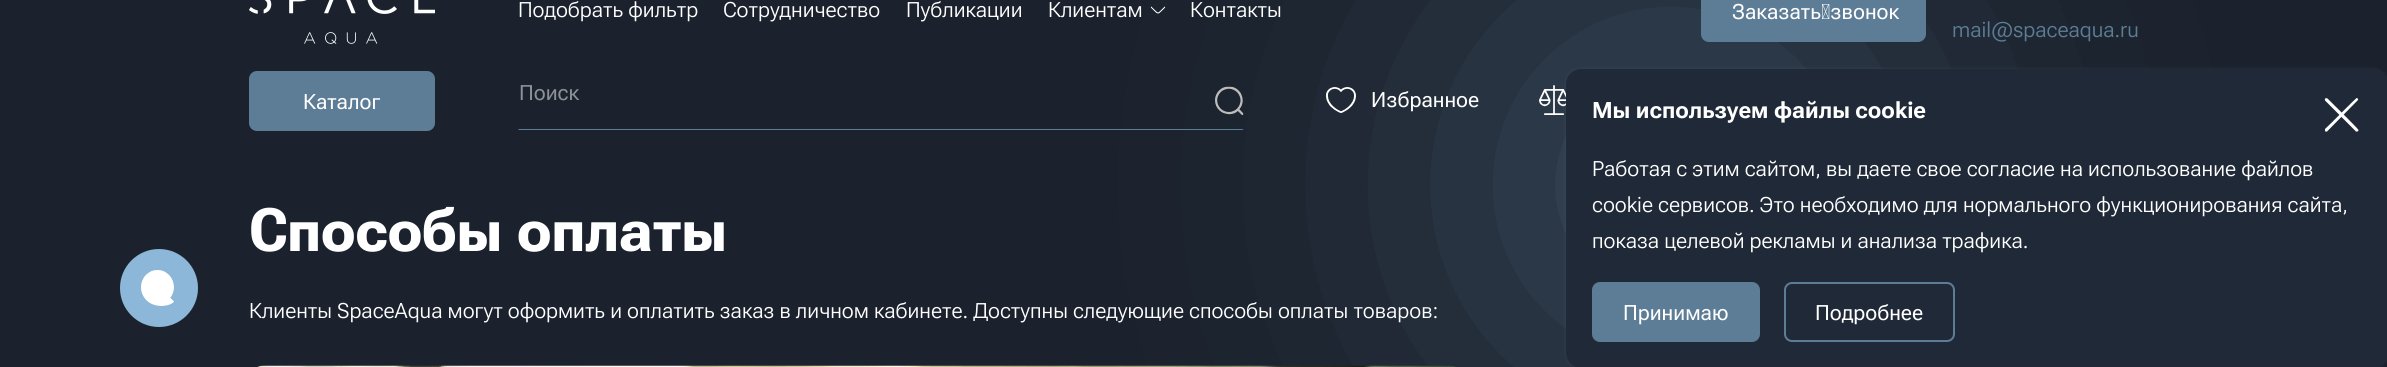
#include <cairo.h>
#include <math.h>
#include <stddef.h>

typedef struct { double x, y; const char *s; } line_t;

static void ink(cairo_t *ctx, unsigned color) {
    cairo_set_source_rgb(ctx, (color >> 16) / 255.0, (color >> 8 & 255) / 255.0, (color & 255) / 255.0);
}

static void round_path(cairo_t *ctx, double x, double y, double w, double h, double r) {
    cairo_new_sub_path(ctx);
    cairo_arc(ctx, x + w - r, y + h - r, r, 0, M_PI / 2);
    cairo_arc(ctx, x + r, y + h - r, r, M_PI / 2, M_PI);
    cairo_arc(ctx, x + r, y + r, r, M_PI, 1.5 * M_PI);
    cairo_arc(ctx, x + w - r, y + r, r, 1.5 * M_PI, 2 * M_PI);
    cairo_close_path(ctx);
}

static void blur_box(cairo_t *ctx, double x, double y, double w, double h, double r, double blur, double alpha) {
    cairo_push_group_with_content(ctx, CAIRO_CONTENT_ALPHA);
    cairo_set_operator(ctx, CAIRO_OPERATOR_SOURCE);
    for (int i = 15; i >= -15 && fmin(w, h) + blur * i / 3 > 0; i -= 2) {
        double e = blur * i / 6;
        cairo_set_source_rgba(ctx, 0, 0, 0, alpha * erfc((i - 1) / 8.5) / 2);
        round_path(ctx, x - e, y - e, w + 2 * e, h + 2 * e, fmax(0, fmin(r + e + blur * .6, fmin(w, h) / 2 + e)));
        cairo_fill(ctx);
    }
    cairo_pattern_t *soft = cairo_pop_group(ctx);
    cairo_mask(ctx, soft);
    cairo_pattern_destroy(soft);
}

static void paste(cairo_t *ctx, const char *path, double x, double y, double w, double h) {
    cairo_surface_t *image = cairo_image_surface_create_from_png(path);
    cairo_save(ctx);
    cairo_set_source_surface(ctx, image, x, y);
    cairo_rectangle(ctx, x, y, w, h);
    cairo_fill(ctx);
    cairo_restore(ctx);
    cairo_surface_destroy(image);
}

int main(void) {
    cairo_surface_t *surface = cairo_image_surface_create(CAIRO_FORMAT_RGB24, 2387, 367);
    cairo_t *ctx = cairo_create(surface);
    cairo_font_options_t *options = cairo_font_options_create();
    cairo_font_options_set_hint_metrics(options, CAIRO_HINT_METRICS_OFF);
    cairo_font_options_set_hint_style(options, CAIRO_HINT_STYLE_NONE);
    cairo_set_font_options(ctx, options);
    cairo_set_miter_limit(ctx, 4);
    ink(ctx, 0x1B222D);
    cairo_paint(ctx);
    paste(ctx, "media/1.png", 249, 0, 186, 44);
    cairo_select_font_face(ctx, "Roboto Flex Light", CAIRO_FONT_SLANT_NORMAL, CAIRO_FONT_WEIGHT_NORMAL);
    cairo_set_font_size(ctx, 21);
    ink(ctx, 0xFFFFFF);
    cairo_move_to(ctx, 518, 17);
    cairo_show_text(ctx, "Подобрать фильтр");
    cairo_move_to(ctx, 723, 17);
    cairo_show_text(ctx, "Сотрудничество");
    ink(ctx, 0x5D7D96);
    blur_box(ctx, 1524, 38, 294, 294, 147, 187.5, 0.5);
    ink(ctx, 0xFFFFFF);
    cairo_move_to(ctx, 906, 17);
    cairo_show_text(ctx, "Публикации");
    cairo_move_to(ctx, 1048, 17);
    cairo_show_text(ctx, "Клиентам");
    paste(ctx, "media/2.png", 1150, 6, 16, 8);
    cairo_move_to(ctx, 1190, 17);
    cairo_show_text(ctx, "Контакты");
    ink(ctx, 0x5D7D96);
    round_path(ctx, 1702, -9, 223, 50, 7);
    cairo_fill_preserve(ctx);
    cairo_stroke(ctx);
    cairo_select_font_face(ctx, "Roboto Flex", CAIRO_FONT_SLANT_NORMAL, CAIRO_FONT_WEIGHT_NORMAL);
    ink(ctx, 0xFFFFFF);
    cairo_move_to(ctx, 1732, 19);
    cairo_show_text(ctx, "Заказать звонок");
    cairo_select_font_face(ctx, "Roboto Flex Light", CAIRO_FONT_SLANT_NORMAL, CAIRO_FONT_WEIGHT_NORMAL);
    ink(ctx, 0x5D7D96);
    cairo_move_to(ctx, 1952, 37);
    cairo_show_text(ctx, "mail@spaceaqua.ru");
    round_path(ctx, 250, 72, 184, 58, 7);
    cairo_fill_preserve(ctx);
    cairo_stroke(ctx);
    cairo_select_font_face(ctx, "Roboto Flex", CAIRO_FONT_SLANT_NORMAL, CAIRO_FONT_WEIGHT_NORMAL);
    ink(ctx, 0xFFFFFF);
    cairo_move_to(ctx, 303, 109);
    cairo_show_text(ctx, "Каталог");
    ink(ctx, 0x5D7D96);
    cairo_new_path(ctx);
    cairo_move_to(ctx, 1244, 130);
    cairo_line_to(ctx, 518, 130);
    cairo_line_to(ctx, 519, 129);
    cairo_line_to(ctx, 1242, 129);
    cairo_close_path(ctx);
    cairo_fill(ctx);
    ink(ctx, 0x8D9196);
    cairo_move_to(ctx, 519, 100);
    cairo_show_text(ctx, "Поиск");
    paste(ctx, "media/3.png", 1215, 86, 29, 29);
    paste(ctx, "media/4.png", 1326, 87, 30, 26);
    ink(ctx, 0xFFFFFF);
    cairo_move_to(ctx, 1371, 107);
    cairo_show_text(ctx, "Избранное");
    paste(ctx, "media/5.png", 1539, 85, 27, 30);
    ink(ctx, 0x8CB7D8);
    cairo_arc(ctx, 159, 288, 39, 0, 2 * M_PI);
    cairo_fill(ctx);
    paste(ctx, "media/6.png", 141, 270, 33, 36);
    cairo_select_font_face(ctx, "Roboto Flex", CAIRO_FONT_SLANT_NORMAL, CAIRO_FONT_WEIGHT_BOLD);
    cairo_set_font_size(ctx, 60);
    ink(ctx, 0xFFFFFF);
    cairo_move_to(ctx, 249, 251);
    cairo_show_text(ctx, "Способы");
    cairo_move_to(ctx, 517, 251);
    cairo_show_text(ctx, "оплаты");
    cairo_select_font_face(ctx, "Roboto Flex Light", CAIRO_FONT_SLANT_NORMAL, CAIRO_FONT_WEIGHT_NORMAL);
    cairo_set_font_size(ctx, 21);
    cairo_move_to(ctx, 249, 318);
    cairo_show_text(ctx, "Клиенты SpaceAqua могут оформить и оплатить заказ в личном кабинете. Доступны следующие способы оплаты товаров:");
    paste(ctx, "media/7.png", 257, 365, 1199, 2);
    ink(ctx, 0x9199B9);
    blur_box(ctx, 1566, 69, 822, 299, 15, 1.5, 0.15);
    ink(ctx, 0x202937);
    round_path(ctx, 1566, 69, 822, 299, 15);
    cairo_fill(ctx);
    cairo_select_font_face(ctx, "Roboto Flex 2", CAIRO_FONT_SLANT_NORMAL, CAIRO_FONT_WEIGHT_BOLD);
    cairo_set_font_size(ctx, 22.5);
    ink(ctx, 0xFFFFFF);
    cairo_move_to(ctx, 1592, 118);
    cairo_show_text(ctx, "Мы используем файлы cookie");
    cairo_new_path(ctx);
    cairo_move_to(ctx, 2327.5, 98.5);
    cairo_curve_to(ctx, 2330.5, 101.5, 2358, 128.5, 2358.5, 130);
    cairo_curve_to(ctx, 2358.5, 131, 2357.5, 132, 2356, 131.5);
    cairo_line_to(ctx, 2325, 100.5);
    cairo_curve_to(ctx, 2324.5, 99.5, 2325, 98.5, 2326, 98);
    cairo_close_path(ctx);
    cairo_fill(ctx);
    cairo_new_path(ctx);
    cairo_move_to(ctx, 2325, 129);
    cairo_curve_to(ctx, 2328.5, 126, 2355.5, 98.5, 2356.5, 98);
    cairo_curve_to(ctx, 2357.5, 98, 2358.5, 99, 2358, 100);
    cairo_line_to(ctx, 2327, 131.5);
    cairo_curve_to(ctx, 2326, 132, 2325, 131.5, 2325, 130.5);
    cairo_close_path(ctx);
    cairo_fill(ctx);
    cairo_select_font_face(ctx, "Roboto Flex Light", CAIRO_FONT_SLANT_NORMAL, CAIRO_FONT_WEIGHT_NORMAL);
    cairo_set_font_size(ctx, 21);
    {
        static const line_t items[] = {
            {1592, 176, "Работая с этим сайтом, вы даете свое согласие на использование файлов"},
            {1592, 212, "cookie сервисов. Это необходимо для нормального функционирования сайта,"},
            {1592, 248, "показа целевой рекламы и анализа трафика."},
        };
        for (size_t i = 0; i < sizeof items / sizeof *items; i++) {
            cairo_move_to(ctx, items[i].x, items[i].y);
            cairo_show_text(ctx, items[i].s);
        }
    }
    ink(ctx, 0x5D7D96);
    round_path(ctx, 1593, 283, 166, 58, 7);
    cairo_fill_preserve(ctx);
    cairo_stroke(ctx);
    cairo_select_font_face(ctx, "Roboto Flex", CAIRO_FONT_SLANT_NORMAL, CAIRO_FONT_WEIGHT_NORMAL);
    ink(ctx, 0xFFFFFF);
    cairo_move_to(ctx, 1623, 320);
    cairo_show_text(ctx, "Принимаю");
    round_path(ctx, 1785, 283, 169, 58, 7);
    ink(ctx, 0x5D7D96);
    cairo_stroke(ctx);
    ink(ctx, 0xFFFFFF);
    cairo_move_to(ctx, 1815, 320);
    cairo_show_text(ctx, "Подробнее");
    cairo_surface_write_to_png(surface, "image.png");
    cairo_font_options_destroy(options);
    cairo_destroy(ctx);
    cairo_surface_destroy(surface);
    return 0;
}
